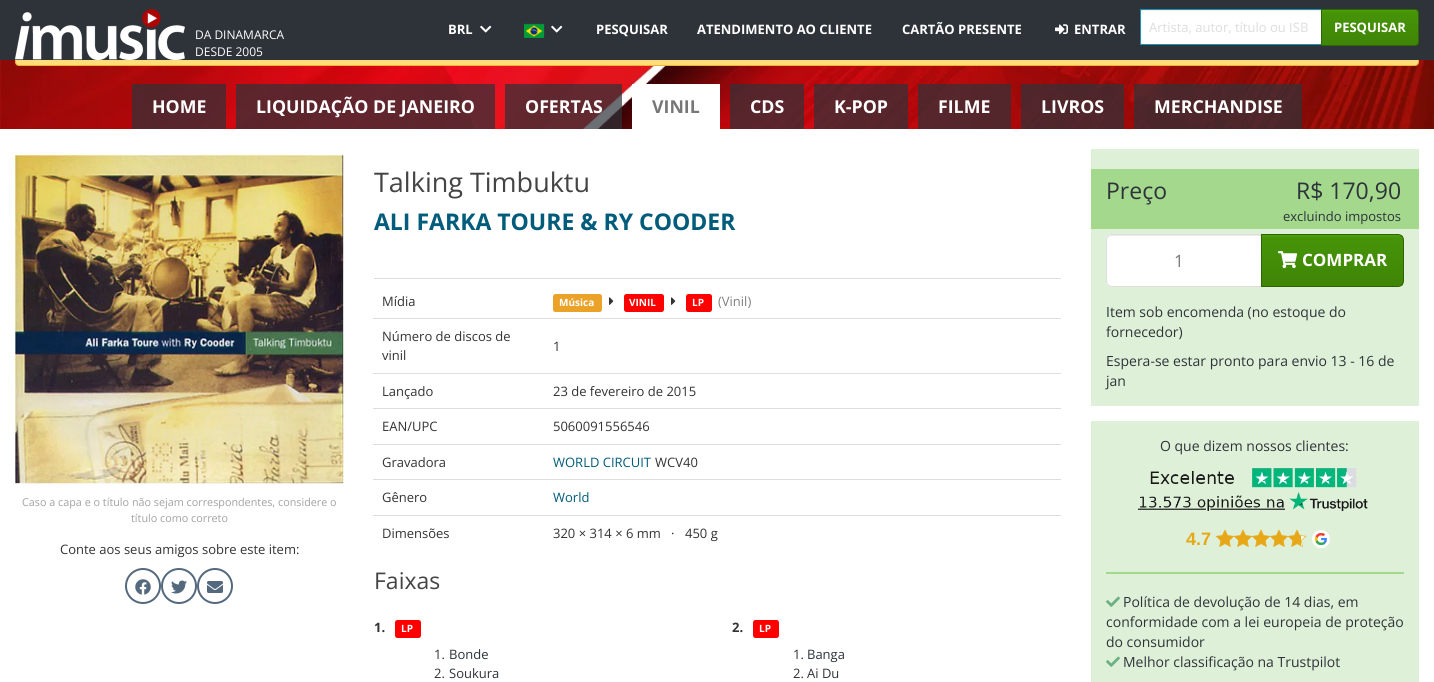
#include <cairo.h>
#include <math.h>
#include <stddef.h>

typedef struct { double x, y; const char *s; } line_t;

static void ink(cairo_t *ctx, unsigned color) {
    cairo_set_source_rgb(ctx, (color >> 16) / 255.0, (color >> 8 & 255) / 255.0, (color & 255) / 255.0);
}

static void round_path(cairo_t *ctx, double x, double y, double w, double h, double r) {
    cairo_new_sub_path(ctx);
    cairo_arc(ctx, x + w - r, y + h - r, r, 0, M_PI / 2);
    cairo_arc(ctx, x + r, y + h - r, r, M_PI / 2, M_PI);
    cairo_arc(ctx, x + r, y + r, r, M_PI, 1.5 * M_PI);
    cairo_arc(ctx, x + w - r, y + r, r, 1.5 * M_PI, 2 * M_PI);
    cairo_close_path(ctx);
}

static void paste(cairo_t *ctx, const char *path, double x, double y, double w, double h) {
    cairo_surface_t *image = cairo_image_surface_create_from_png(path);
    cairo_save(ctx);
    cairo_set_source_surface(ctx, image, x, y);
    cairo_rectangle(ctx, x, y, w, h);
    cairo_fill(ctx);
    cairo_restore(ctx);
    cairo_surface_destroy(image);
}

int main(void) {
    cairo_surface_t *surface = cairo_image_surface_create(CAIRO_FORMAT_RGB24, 1434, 682);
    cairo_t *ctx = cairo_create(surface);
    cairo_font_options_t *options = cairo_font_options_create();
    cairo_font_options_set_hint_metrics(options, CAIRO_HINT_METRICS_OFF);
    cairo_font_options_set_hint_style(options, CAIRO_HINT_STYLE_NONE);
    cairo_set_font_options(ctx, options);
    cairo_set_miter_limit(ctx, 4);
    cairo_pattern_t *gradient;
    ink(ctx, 0xFFFFFF);
    cairo_paint(ctx);
    paste(ctx, "media/5.png", 0, 60, 1434, 69);
    ink(ctx, 0xFFDD7A);
    round_path(ctx, 15.5, -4.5, 1403, 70, 3.5);
    cairo_fill_preserve(ctx);
    ink(ctx, 0xEEB437);
    cairo_set_line_width(ctx, 1);
    cairo_stroke(ctx);
    ink(ctx, 0x2D3339);
    cairo_rectangle(ctx, 0, 0, 1434, 60);
    cairo_fill(ctx);
    paste(ctx, "media/1.png", 15, 9, 170, 51);
    cairo_select_font_face(ctx, "Open Sans", CAIRO_FONT_SLANT_NORMAL, CAIRO_FONT_WEIGHT_NORMAL);
    cairo_set_font_size(ctx, 12);
    ink(ctx, 0xFFFFFF);
    cairo_move_to(ctx, 195, 39);
    cairo_show_text(ctx, "DA DINAMARCA");
    cairo_move_to(ctx, 195, 56);
    cairo_show_text(ctx, "DESDE 2005");
    cairo_select_font_face(ctx, "Open Sans", CAIRO_FONT_SLANT_NORMAL, CAIRO_FONT_WEIGHT_BOLD);
    cairo_set_font_size(ctx, 13);
    cairo_move_to(ctx, 448, 34);
    cairo_show_text(ctx, "BRL");
    paste(ctx, "media/2.png", 480, 25, 12, 8);
    paste(ctx, "media/3.png", 524, 23, 21, 15);
    paste(ctx, "media/2.png", 551, 25, 12, 8);
    {
        static const line_t items[] = {
            {596, 34, "PESQUISAR"},
            {697, 34, "ATENDIMENTO AO CLIENTE"},
            {902, 34, "CARTÃO PRESENTE"},
        };
        for (size_t i = 0; i < sizeof items / sizeof *items; i++) {
            cairo_move_to(ctx, items[i].x, items[i].y);
            cairo_show_text(ctx, items[i].s);
        }
    }
    paste(ctx, "media/4.png", 1055, 24, 13, 11);
    cairo_move_to(ctx, 1074, 34);
    cairo_show_text(ctx, "ENTRAR");
    cairo_new_path(ctx);
    cairo_move_to(ctx, 1144, 9);
    cairo_line_to(ctx, 1322, 9);
    cairo_line_to(ctx, 1322, 45);
    cairo_line_to(ctx, 1144, 45);
    cairo_curve_to(ctx, 1142, 45, 1140, 43, 1140, 41);
    cairo_line_to(ctx, 1140, 13);
    cairo_curve_to(ctx, 1140, 11, 1142, 9, 1144, 9);
    cairo_close_path(ctx);
    cairo_fill(ctx);
    cairo_set_source_rgba(ctx, 0, 0, 0, 0.07);
    cairo_rectangle(ctx, 1141, 10, 180, 1);
    cairo_fill(ctx);
    cairo_rectangle(ctx, 1140.5, 9.5, 181, 35);
    ink(ctx, 0x1993B6);
    cairo_stroke(ctx);
    cairo_select_font_face(ctx, "Open Sans", CAIRO_FONT_SLANT_NORMAL, CAIRO_FONT_WEIGHT_NORMAL);
    ink(ctx, 0xDDDDDD);
    cairo_move_to(ctx, 1149, 32);
    cairo_show_text(ctx, "Artista, autor, título ou ISB");
    gradient = cairo_pattern_create_linear(1370, 10, 1370, 45);
    cairo_pattern_add_color_stop_rgba(gradient, 0, 0.302, 0.639, 0.035, 1);
    cairo_pattern_add_color_stop_rgba(gradient, 0.06, 0.275, 0.58, 0.031, 1);
    cairo_pattern_add_color_stop_rgba(gradient, 1, 0.247, 0.522, 0.027, 1);
    cairo_set_source(ctx, gradient);
    cairo_pattern_destroy(gradient);
    cairo_rectangle(ctx, 1322, 10, 96, 35);
    cairo_fill(ctx);
    cairo_new_path(ctx);
    cairo_move_to(ctx, 1321.5, 9.5);
    cairo_line_to(ctx, 1415, 9.5);
    cairo_curve_to(ctx, 1417, 9.5, 1418.5, 11, 1418.5, 13);
    cairo_line_to(ctx, 1418.5, 42);
    cairo_curve_to(ctx, 1418.5, 44, 1417, 45.5, 1415, 45.5);
    cairo_line_to(ctx, 1321.5, 45.5);
    cairo_close_path(ctx);
    ink(ctx, 0x2F6405);
    cairo_stroke(ctx);
    cairo_select_font_face(ctx, "Open Sans", CAIRO_FONT_SLANT_NORMAL, CAIRO_FONT_WEIGHT_BOLD);
    ink(ctx, 0xFFFFFF);
    cairo_move_to(ctx, 1334, 32);
    cairo_show_text(ctx, "PESQUISAR");
    cairo_set_source_rgba(ctx, 0.176, 0.2, 0.224, 0.7);
    cairo_rectangle(ctx, 132, 84, 94, 45);
    cairo_fill(ctx);
    cairo_set_font_size(ctx, 17.75);
    ink(ctx, 0xFFFFFF);
    cairo_move_to(ctx, 152, 113);
    cairo_show_text(ctx, "HOME");
    cairo_set_source_rgba(ctx, 0.176, 0.2, 0.224, 0.7);
    cairo_rectangle(ctx, 236, 84, 259, 45);
    cairo_fill(ctx);
    ink(ctx, 0xFFFFFF);
    cairo_move_to(ctx, 256, 113);
    cairo_show_text(ctx, "LIQUIDAÇÃO DE JANEIRO");
    cairo_set_source_rgba(ctx, 0.176, 0.2, 0.224, 0.7);
    cairo_rectangle(ctx, 505, 84, 117, 45);
    cairo_fill(ctx);
    ink(ctx, 0xFFFFFF);
    cairo_move_to(ctx, 525, 113);
    cairo_show_text(ctx, "OFERTAS");
    cairo_rectangle(ctx, 632, 84, 88, 45);
    cairo_fill(ctx);
    ink(ctx, 0x777777);
    cairo_move_to(ctx, 652, 113);
    cairo_show_text(ctx, "VINIL");
    cairo_set_source_rgba(ctx, 0.176, 0.2, 0.224, 0.7);
    cairo_rectangle(ctx, 730, 84, 74, 45);
    cairo_fill(ctx);
    ink(ctx, 0xFFFFFF);
    cairo_move_to(ctx, 750, 113);
    cairo_show_text(ctx, "CDS");
    cairo_set_source_rgba(ctx, 0.176, 0.2, 0.224, 0.7);
    cairo_rectangle(ctx, 814, 84, 94, 45);
    cairo_fill(ctx);
    ink(ctx, 0xFFFFFF);
    cairo_move_to(ctx, 834, 113);
    cairo_show_text(ctx, "K-POP");
    cairo_set_source_rgba(ctx, 0.176, 0.2, 0.224, 0.7);
    cairo_rectangle(ctx, 918, 84, 93, 45);
    cairo_fill(ctx);
    ink(ctx, 0xFFFFFF);
    cairo_move_to(ctx, 938, 113);
    cairo_show_text(ctx, "FILME");
    cairo_set_source_rgba(ctx, 0.176, 0.2, 0.224, 0.7);
    cairo_rectangle(ctx, 1021, 84, 103, 45);
    cairo_fill(ctx);
    ink(ctx, 0xFFFFFF);
    cairo_move_to(ctx, 1041, 113);
    cairo_show_text(ctx, "LIVROS");
    cairo_set_source_rgba(ctx, 0.176, 0.2, 0.224, 0.7);
    cairo_rectangle(ctx, 1134, 84, 168, 45);
    cairo_fill(ctx);
    ink(ctx, 0xFFFFFF);
    cairo_move_to(ctx, 1154, 113);
    cairo_show_text(ctx, "MERCHANDISE");
    paste(ctx, "media/6.png", 15, 155, 329, 329);
    cairo_select_font_face(ctx, "Open Sans", CAIRO_FONT_SLANT_NORMAL, CAIRO_FONT_WEIGHT_NORMAL);
    cairo_set_font_size(ctx, 10.8);
    ink(ctx, 0xA2A2A2);
    cairo_move_to(ctx, 22, 506);
    cairo_show_text(ctx, "Caso a capa e o título não sejam correspondentes, considere o");
    cairo_move_to(ctx, 131, 522);
    cairo_show_text(ctx, "título como correto");
    cairo_set_font_size(ctx, 13);
    ink(ctx, 0x333333);
    cairo_move_to(ctx, 60, 554);
    cairo_show_text(ctx, "Conte aos seus amigos sobre este item:");
    cairo_new_path(ctx);
    cairo_arc(ctx, 143, 586, 17, 0, 2 * M_PI);
    ink(ctx, 0x54697E);
    cairo_set_line_width(ctx, 2);
    cairo_stroke(ctx);
    paste(ctx, "media/7.png", 135, 579, 16, 16);
    cairo_arc(ctx, 179, 586, 17, 0, 2 * M_PI);
    cairo_stroke(ctx);
    paste(ctx, "media/8.png", 171, 580, 16, 14);
    cairo_arc(ctx, 215, 586, 17, 0, 2 * M_PI);
    cairo_stroke(ctx);
    paste(ctx, "media/9.png", 207, 581, 16, 12);
    cairo_set_font_size(ctx, 27);
    ink(ctx, 0x444444);
    cairo_move_to(ctx, 374, 192);
    cairo_show_text(ctx, "Talking Timbuktu");
    cairo_select_font_face(ctx, "Open Sans", CAIRO_FONT_SLANT_NORMAL, CAIRO_FONT_WEIGHT_BOLD);
    cairo_set_font_size(ctx, 23);
    ink(ctx, 0x015B7B);
    cairo_move_to(ctx, 374, 230);
    cairo_show_text(ctx, "ALI FARKA TOURE & RY COODER");
    ink(ctx, 0xDDDDDD);
    cairo_rectangle(ctx, 374, 278, 687, 1);
    cairo_fill(ctx);
    cairo_select_font_face(ctx, "Open Sans", CAIRO_FONT_SLANT_NORMAL, CAIRO_FONT_WEIGHT_NORMAL);
    cairo_set_font_size(ctx, 13);
    ink(ctx, 0x333333);
    cairo_move_to(ctx, 382, 306);
    cairo_show_text(ctx, "Mídia");
    ink(ctx, 0xEAA228);
    round_path(ctx, 553, 294, 49, 18, 2.5);
    cairo_fill(ctx);
    cairo_select_font_face(ctx, "Open Sans", CAIRO_FONT_SLANT_NORMAL, CAIRO_FONT_WEIGHT_BOLD);
    cairo_set_font_size(ctx, 10);
    ink(ctx, 0xFFFFFF);
    cairo_move_to(ctx, 559, 306);
    cairo_show_text(ctx, "Música");
    paste(ctx, "media/10.png", 609, 297, 5, 8);
    ink(ctx, 0xFF0000);
    round_path(ctx, 624, 294, 40, 18, 2.5);
    cairo_fill(ctx);
    ink(ctx, 0xFFFFFF);
    cairo_move_to(ctx, 629, 306);
    cairo_show_text(ctx, "VINIL");
    paste(ctx, "media/10.png", 671, 297, 5, 8);
    ink(ctx, 0xFF0000);
    round_path(ctx, 686, 294, 26, 18, 2.5);
    cairo_fill(ctx);
    ink(ctx, 0xFFFFFF);
    cairo_move_to(ctx, 692, 306);
    cairo_show_text(ctx, "LP");
    cairo_select_font_face(ctx, "Open Sans", CAIRO_FONT_SLANT_NORMAL, CAIRO_FONT_WEIGHT_NORMAL);
    cairo_set_font_size(ctx, 13);
    ink(ctx, 0x808080);
    cairo_move_to(ctx, 718, 306);
    cairo_show_text(ctx, "(Vinil)");
    ink(ctx, 0x333333);
    cairo_move_to(ctx, 382, 341);
    cairo_show_text(ctx, "Número de discos de");
    cairo_move_to(ctx, 382, 360);
    cairo_show_text(ctx, "vinil");
    ink(ctx, 0xDDDDDD);
    cairo_rectangle(ctx, 373, 318, 688, 1);
    cairo_fill(ctx);
    ink(ctx, 0x333333);
    cairo_move_to(ctx, 553, 351);
    cairo_show_text(ctx, "1");
    cairo_move_to(ctx, 382, 396);
    cairo_show_text(ctx, "Lançado");
    ink(ctx, 0xDDDDDD);
    cairo_rectangle(ctx, 373, 373, 688, 1);
    cairo_fill(ctx);
    ink(ctx, 0x333333);
    cairo_move_to(ctx, 553, 396);
    cairo_show_text(ctx, "23 de fevereiro de 2015");
    cairo_move_to(ctx, 382, 431);
    cairo_show_text(ctx, "EAN/UPC");
    ink(ctx, 0xDDDDDD);
    cairo_rectangle(ctx, 373, 408, 688, 1);
    cairo_fill(ctx);
    ink(ctx, 0x333333);
    cairo_move_to(ctx, 553, 431);
    cairo_show_text(ctx, "5060091556546");
    cairo_move_to(ctx, 382, 467);
    cairo_show_text(ctx, "Gravadora");
    ink(ctx, 0xDDDDDD);
    cairo_rectangle(ctx, 373, 444, 688, 1);
    cairo_fill(ctx);
    ink(ctx, 0x015B7B);
    cairo_move_to(ctx, 553, 467);
    cairo_show_text(ctx, "WORLD CIRCUIT");
    ink(ctx, 0x333333);
    cairo_move_to(ctx, 655, 467);
    cairo_show_text(ctx, "WCV40");
    cairo_move_to(ctx, 382, 502);
    cairo_show_text(ctx, "Gênero");
    ink(ctx, 0xDDDDDD);
    cairo_rectangle(ctx, 373, 479, 688, 1);
    cairo_fill(ctx);
    ink(ctx, 0x015B7B);
    cairo_move_to(ctx, 553, 502);
    cairo_show_text(ctx, "World");
    ink(ctx, 0x333333);
    cairo_move_to(ctx, 382, 538);
    cairo_show_text(ctx, "Dimensões");
    ink(ctx, 0xDDDDDD);
    cairo_rectangle(ctx, 373, 515, 688, 1);
    cairo_fill(ctx);
    ink(ctx, 0x333333);
    {
        static const line_t items[] = {
            {553, 538, "320 × 314 × 6 mm"},
            {671, 538, "·"},
            {685, 538, "450 g"},
        };
        for (size_t i = 0; i < sizeof items / sizeof *items; i++) {
            cairo_move_to(ctx, items[i].x, items[i].y);
            cairo_show_text(ctx, items[i].s);
        }
    }
    cairo_set_font_size(ctx, 23);
    ink(ctx, 0x444444);
    cairo_move_to(ctx, 374, 589);
    cairo_show_text(ctx, "Faixas");
    cairo_select_font_face(ctx, "Open Sans", CAIRO_FONT_SLANT_NORMAL, CAIRO_FONT_WEIGHT_BOLD);
    cairo_set_font_size(ctx, 13);
    ink(ctx, 0x333333);
    cairo_move_to(ctx, 374, 632);
    cairo_show_text(ctx, "1.");
    ink(ctx, 0xFF0000);
    round_path(ctx, 395, 620, 26, 18, 2.5);
    cairo_fill(ctx);
    cairo_set_font_size(ctx, 10);
    ink(ctx, 0xFFFFFF);
    cairo_move_to(ctx, 401, 632);
    cairo_show_text(ctx, "LP");
    cairo_select_font_face(ctx, "Open Sans", CAIRO_FONT_SLANT_NORMAL, CAIRO_FONT_WEIGHT_NORMAL);
    cairo_set_font_size(ctx, 13);
    ink(ctx, 0x333333);
    cairo_move_to(ctx, 434, 659);
    cairo_show_text(ctx, "1.");
    ink(ctx, 0x2D3339);
    cairo_move_to(ctx, 449, 659);
    cairo_show_text(ctx, "Bonde");
    ink(ctx, 0x333333);
    cairo_move_to(ctx, 434, 678);
    cairo_show_text(ctx, "2.");
    ink(ctx, 0x2D3339);
    cairo_move_to(ctx, 449, 678);
    cairo_show_text(ctx, "Soukura");
    cairo_select_font_face(ctx, "Open Sans", CAIRO_FONT_SLANT_NORMAL, CAIRO_FONT_WEIGHT_BOLD);
    ink(ctx, 0x333333);
    cairo_move_to(ctx, 732, 632);
    cairo_show_text(ctx, "2.");
    ink(ctx, 0xFF0000);
    round_path(ctx, 753, 620, 26, 18, 2.5);
    cairo_fill(ctx);
    cairo_set_font_size(ctx, 10);
    ink(ctx, 0xFFFFFF);
    cairo_move_to(ctx, 759, 632);
    cairo_show_text(ctx, "LP");
    cairo_select_font_face(ctx, "Open Sans", CAIRO_FONT_SLANT_NORMAL, CAIRO_FONT_WEIGHT_NORMAL);
    cairo_set_font_size(ctx, 13);
    ink(ctx, 0x333333);
    cairo_move_to(ctx, 793, 659);
    cairo_show_text(ctx, "1.");
    ink(ctx, 0x2D3339);
    cairo_move_to(ctx, 807, 659);
    cairo_show_text(ctx, "Banga");
    ink(ctx, 0x333333);
    cairo_move_to(ctx, 793, 678);
    cairo_show_text(ctx, "2.");
    ink(ctx, 0x2D3339);
    cairo_move_to(ctx, 807, 678);
    cairo_show_text(ctx, "Ai Du");
    ink(ctx, 0xDFF0D8);
    cairo_rectangle(ctx, 1091, 149, 328, 257);
    cairo_fill(ctx);
    ink(ctx, 0xA3D88D);
    cairo_rectangle(ctx, 1091, 169, 328, 60);
    cairo_fill(ctx);
    cairo_set_font_size(ctx, 23);
    ink(ctx, 0x2D3339);
    cairo_move_to(ctx, 1106, 199);
    cairo_show_text(ctx, "Preço");
    cairo_move_to(ctx, 1296, 199);
    cairo_show_text(ctx, "R$ 170,90");
    cairo_set_font_size(ctx, 13);
    cairo_move_to(ctx, 1283, 221);
    cairo_show_text(ctx, "excluindo impostos");
    ink(ctx, 0xFFFFFF);
    cairo_new_path(ctx);
    cairo_move_to(ctx, 1112, 234);
    cairo_line_to(ctx, 1262, 234);
    cairo_line_to(ctx, 1262, 287);
    cairo_line_to(ctx, 1112, 287);
    cairo_curve_to(ctx, 1108.5, 287, 1106, 284.5, 1106, 281);
    cairo_line_to(ctx, 1106, 240);
    cairo_curve_to(ctx, 1106, 236.5, 1108.5, 234, 1112, 234);
    cairo_close_path(ctx);
    cairo_fill(ctx);
    ink(ctx, 0xECECEC);
    cairo_new_path(ctx);
    cairo_move_to(ctx, 1112, 236);
    cairo_line_to(ctx, 1261, 236);
    cairo_line_to(ctx, 1261, 235);
    cairo_line_to(ctx, 1112, 235);
    cairo_curve_to(ctx, 1109, 235, 1107, 237, 1107, 240);
    cairo_line_to(ctx, 1107, 241);
    cairo_curve_to(ctx, 1107, 238, 1109, 236, 1112, 236);
    cairo_close_path(ctx);
    cairo_fill(ctx);
    cairo_new_path(ctx);
    cairo_move_to(ctx, 1112, 234.5);
    cairo_line_to(ctx, 1261.5, 234.5);
    cairo_line_to(ctx, 1261.5, 286.5);
    cairo_line_to(ctx, 1112, 286.5);
    cairo_curve_to(ctx, 1109, 286.5, 1106.5, 284, 1106.5, 281);
    cairo_line_to(ctx, 1106.5, 240);
    cairo_curve_to(ctx, 1106.5, 237, 1109, 234.5, 1112, 234.5);
    cairo_close_path(ctx);
    ink(ctx, 0xDDDDDD);
    cairo_set_line_width(ctx, 1);
    cairo_stroke(ctx);
    cairo_set_font_size(ctx, 17);
    ink(ctx, 0x777777);
    cairo_move_to(ctx, 1174, 267);
    cairo_show_text(ctx, "1");
    cairo_save(ctx);
    cairo_new_path(ctx);
    cairo_move_to(ctx, 1261, 234);
    cairo_line_to(ctx, 1398, 234);
    cairo_curve_to(ctx, 1401.5, 234, 1404, 236.5, 1404, 240);
    cairo_line_to(ctx, 1404, 281);
    cairo_curve_to(ctx, 1404, 284.5, 1401.5, 287, 1398, 287);
    cairo_line_to(ctx, 1261, 287);
    cairo_close_path(ctx);
    cairo_clip(ctx);
    gradient = cairo_pattern_create_linear(1333, 235, 1333, 286);
    cairo_pattern_add_color_stop_rgba(gradient, 0, 0.302, 0.639, 0.035, 1);
    cairo_pattern_add_color_stop_rgba(gradient, 0.06, 0.275, 0.58, 0.031, 1);
    cairo_pattern_add_color_stop_rgba(gradient, 1, 0.247, 0.522, 0.027, 1);
    cairo_set_source(ctx, gradient);
    cairo_pattern_destroy(gradient);
    cairo_rectangle(ctx, 1262, 235, 141, 51);
    cairo_fill(ctx);
    cairo_restore(ctx);
    cairo_new_path(ctx);
    cairo_move_to(ctx, 1261.5, 234.5);
    cairo_line_to(ctx, 1398, 234.5);
    cairo_curve_to(ctx, 1401, 234.5, 1403.5, 237, 1403.5, 240);
    cairo_line_to(ctx, 1403.5, 281);
    cairo_curve_to(ctx, 1403.5, 284, 1401, 286.5, 1398, 286.5);
    cairo_line_to(ctx, 1261.5, 286.5);
    cairo_close_path(ctx);
    ink(ctx, 0x2F6405);
    cairo_stroke(ctx);
    paste(ctx, "media/11.png", 1278, 251, 20, 18);
    cairo_select_font_face(ctx, "Open Sans", CAIRO_FONT_SLANT_NORMAL, CAIRO_FONT_WEIGHT_BOLD);
    ink(ctx, 0xFFFFFF);
    cairo_move_to(ctx, 1302, 266);
    cairo_show_text(ctx, "COMPRAR");
    cairo_select_font_face(ctx, "Open Sans", CAIRO_FONT_SLANT_NORMAL, CAIRO_FONT_WEIGHT_NORMAL);
    cairo_set_font_size(ctx, 14);
    ink(ctx, 0x2D3339);
    {
        static const line_t items[] = {
            {1106, 317, "Item sob encomenda (no estoque do"},
            {1106, 337, "fornecedor)"},
            {1106, 366, "Espera-se estar pronto para envio 13 - 16 de"},
            {1106, 386, "jan"},
        };
        for (size_t i = 0; i < sizeof items / sizeof *items; i++) {
            cairo_move_to(ctx, items[i].x, items[i].y);
            cairo_show_text(ctx, items[i].s);
        }
    }
    ink(ctx, 0xDFF0D8);
    cairo_rectangle(ctx, 1091, 421, 328, 261);
    cairo_fill(ctx);
    ink(ctx, 0x2D3339);
    cairo_move_to(ctx, 1160, 451);
    cairo_show_text(ctx, "O que dizem nossos clientes:");
    paste(ctx, "media/12.png", 1138, 468, 230, 44);
    paste(ctx, "media/13.png", 1215, 529, 92, 18);
    cairo_select_font_face(ctx, "Liberation Sans", CAIRO_FONT_SLANT_NORMAL, CAIRO_FONT_WEIGHT_BOLD);
    cairo_set_font_size(ctx, 18);
    ink(ctx, 0xE6A817);
    cairo_move_to(ctx, 1186, 545);
    cairo_show_text(ctx, "4.7");
    paste(ctx, "media/14.png", 1312, 530, 18, 18);
    ink(ctx, 0xA3D88D);
    cairo_rectangle(ctx, 1106, 572, 298, 2);
    cairo_fill(ctx);
    paste(ctx, "media/15.png", 1106, 596, 14, 11);
    cairo_select_font_face(ctx, "Open Sans", CAIRO_FONT_SLANT_NORMAL, CAIRO_FONT_WEIGHT_NORMAL);
    cairo_set_font_size(ctx, 14);
    ink(ctx, 0x2D3339);
    {
        static const line_t items[] = {
            {1123, 607, "Política de devolução de 14 dias, em"},
            {1106, 627, "conformidade com a lei europeia de proteção"},
            {1106, 647, "do consumidor"},
        };
        for (size_t i = 0; i < sizeof items / sizeof *items; i++) {
            cairo_move_to(ctx, items[i].x, items[i].y);
            cairo_show_text(ctx, items[i].s);
        }
    }
    paste(ctx, "media/15.png", 1106, 656, 14, 11);
    cairo_move_to(ctx, 1123, 667);
    cairo_show_text(ctx, "Melhor classificação na Trustpilot");
    cairo_surface_write_to_png(surface, "image.png");
    cairo_font_options_destroy(options);
    cairo_destroy(ctx);
    cairo_surface_destroy(surface);
    return 0;
}
